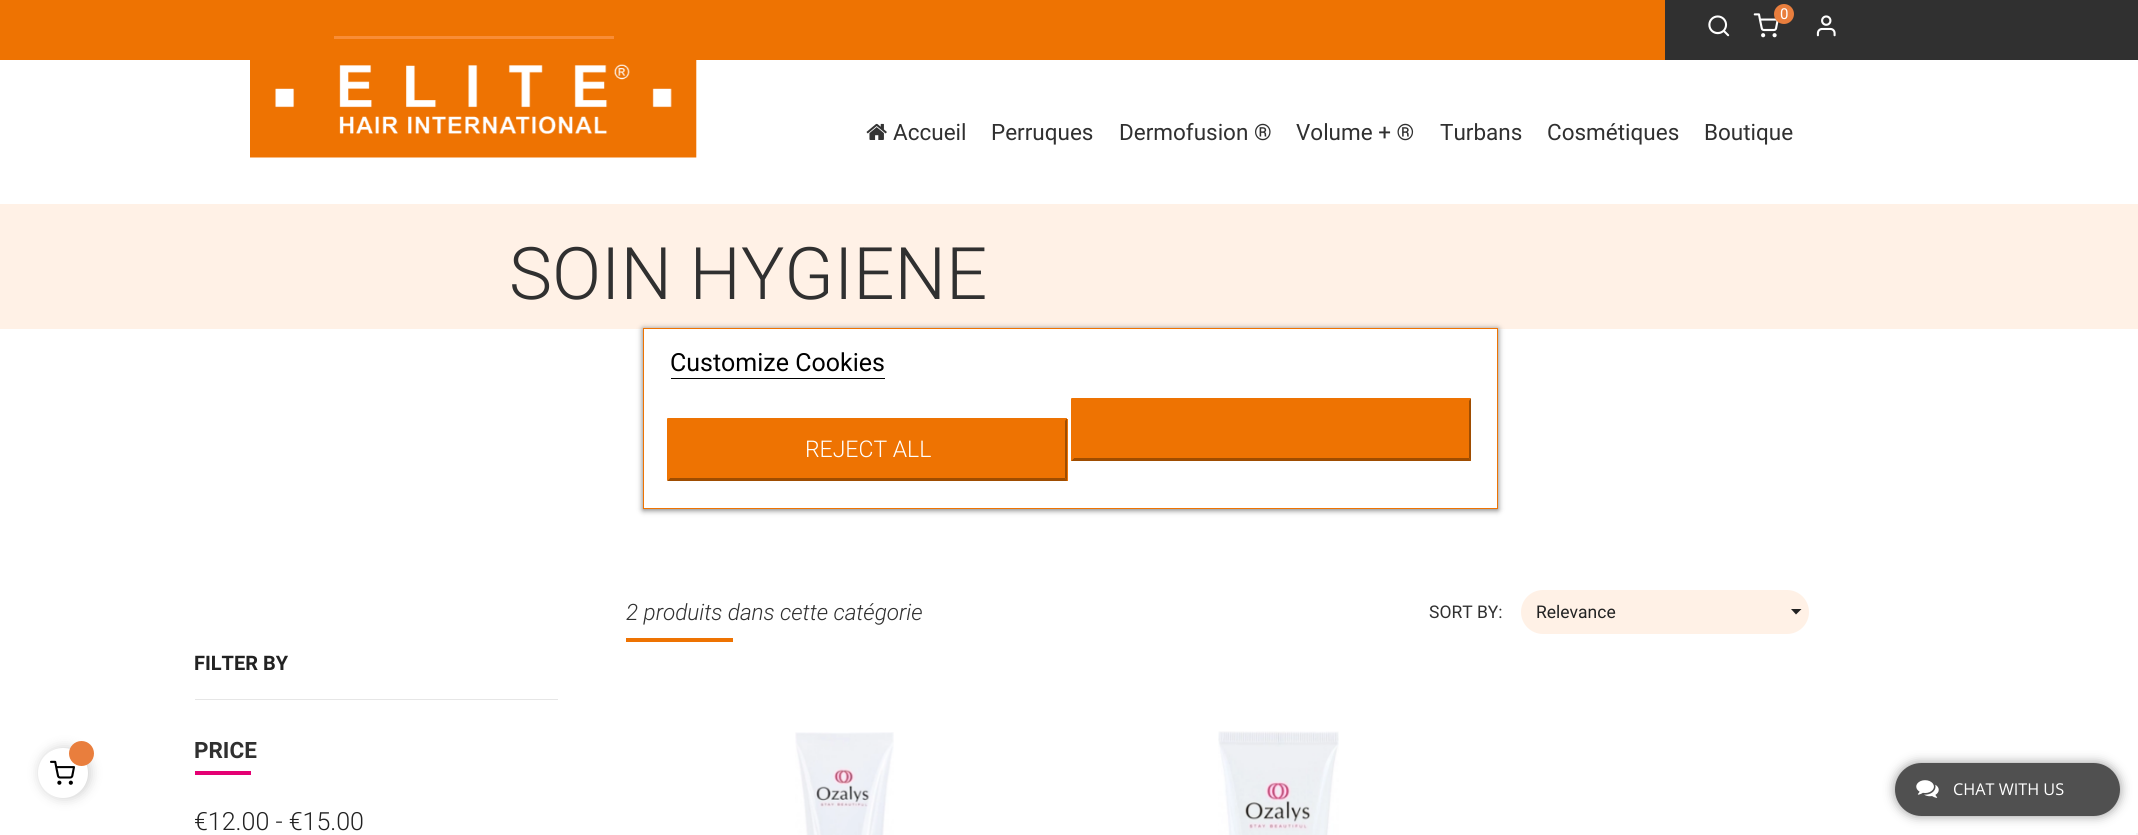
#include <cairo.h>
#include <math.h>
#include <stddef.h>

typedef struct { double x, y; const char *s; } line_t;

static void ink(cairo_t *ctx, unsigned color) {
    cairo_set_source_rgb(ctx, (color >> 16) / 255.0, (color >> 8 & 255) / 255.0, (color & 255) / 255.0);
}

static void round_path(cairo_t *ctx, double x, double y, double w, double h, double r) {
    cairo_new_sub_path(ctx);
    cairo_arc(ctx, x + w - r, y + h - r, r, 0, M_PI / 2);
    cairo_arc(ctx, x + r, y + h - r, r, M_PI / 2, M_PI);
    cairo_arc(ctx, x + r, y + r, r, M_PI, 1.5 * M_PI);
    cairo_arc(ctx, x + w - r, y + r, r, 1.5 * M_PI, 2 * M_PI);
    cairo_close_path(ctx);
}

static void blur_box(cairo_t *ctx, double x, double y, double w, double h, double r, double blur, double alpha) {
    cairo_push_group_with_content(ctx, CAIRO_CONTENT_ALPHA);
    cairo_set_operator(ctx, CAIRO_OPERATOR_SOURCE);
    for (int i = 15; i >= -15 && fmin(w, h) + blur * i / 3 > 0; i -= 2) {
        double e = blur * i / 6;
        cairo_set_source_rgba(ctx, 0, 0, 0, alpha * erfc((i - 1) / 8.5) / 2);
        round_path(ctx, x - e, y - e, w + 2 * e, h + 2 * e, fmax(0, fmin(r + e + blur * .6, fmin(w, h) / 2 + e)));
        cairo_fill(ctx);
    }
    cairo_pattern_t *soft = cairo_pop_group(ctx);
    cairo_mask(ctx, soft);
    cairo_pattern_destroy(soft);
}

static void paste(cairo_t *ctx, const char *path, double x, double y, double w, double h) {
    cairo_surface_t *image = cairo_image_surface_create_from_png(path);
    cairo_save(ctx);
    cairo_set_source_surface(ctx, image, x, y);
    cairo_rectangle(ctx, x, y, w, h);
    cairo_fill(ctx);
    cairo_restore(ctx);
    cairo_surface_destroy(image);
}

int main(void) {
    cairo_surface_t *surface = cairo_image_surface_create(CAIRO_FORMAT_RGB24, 2138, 835);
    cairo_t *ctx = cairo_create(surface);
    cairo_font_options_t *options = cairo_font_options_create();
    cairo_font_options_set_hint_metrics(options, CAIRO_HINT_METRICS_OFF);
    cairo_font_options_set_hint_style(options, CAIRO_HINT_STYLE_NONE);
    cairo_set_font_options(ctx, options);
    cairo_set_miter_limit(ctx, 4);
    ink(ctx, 0xFFFFFF);
    cairo_paint(ctx);
    ink(ctx, 0x000000);
    blur_box(ctx, 40, 748, 50, 50, 25, 6, 0.2);
    ink(ctx, 0xFFFFFF);
    cairo_arc(ctx, 63, 773, 25, 0, 2 * M_PI);
    cairo_fill(ctx);
    paste(ctx, "media/1.png", 50, 760, 25, 25);
    ink(ctx, 0xE97E3D);
    cairo_arc(ctx, 81.5, 753.5, 12.5, 0, 2 * M_PI);
    cairo_fill(ctx);
    ink(ctx, 0xEE7302);
    cairo_rectangle(ctx, 0, 0, 1665, 60);
    cairo_fill(ctx);
    ink(ctx, 0x303030);
    cairo_rectangle(ctx, 1665, 0, 473, 60);
    cairo_fill(ctx);
    paste(ctx, "media/2.png", 1708, 15, 22, 22);
    paste(ctx, "media/3.png", 1753, 13, 26, 25);
    ink(ctx, 0xE97E3D);
    cairo_arc(ctx, 1784, 14, 10, 0, 2 * M_PI);
    cairo_fill(ctx);
    cairo_select_font_face(ctx, "Roboto", CAIRO_FONT_SLANT_NORMAL, CAIRO_FONT_WEIGHT_NORMAL);
    cairo_set_font_size(ctx, 15);
    ink(ctx, 0xFFFFFF);
    cairo_move_to(ctx, 1780, 19);
    cairo_show_text(ctx, "0");
    paste(ctx, "media/4.png", 1816, 15, 20, 22);
    ink(ctx, 0xF98D36);
    cairo_rectangle(ctx, 334, 36, 280, 3);
    cairo_fill(ctx);
    paste(ctx, "media/5.png", 250, 60, 447, 98);
    paste(ctx, "media/6.png", 866, 123, 21, 17);
    cairo_set_font_size(ctx, 22.5);
    ink(ctx, 0x303030);
    {
        static const line_t items[] = {
            {893, 140, "Accueil"},
            {991, 140, "Perruques"},
            {1119, 140, "Dermofusion ®"},
            {1296, 140, "Volume + ®"},
            {1440, 140, "Turbans"},
            {1547, 140, "Cosmétiques"},
            {1704, 140, "Boutique"},
        };
        for (size_t i = 0; i < sizeof items / sizeof *items; i++) {
            cairo_move_to(ctx, items[i].x, items[i].y);
            cairo_show_text(ctx, items[i].s);
        }
    }
    ink(ctx, 0xFFF1E6);
    cairo_rectangle(ctx, 0, 204, 2138, 125);
    cairo_fill(ctx);
    cairo_select_font_face(ctx, "Roboto Light", CAIRO_FONT_SLANT_NORMAL, CAIRO_FONT_WEIGHT_NORMAL);
    cairo_set_font_size(ctx, 72.5);
    ink(ctx, 0x303030);
    cairo_move_to(ctx, 509, 299);
    cairo_show_text(ctx, "SOIN HYGIENE");
    cairo_select_font_face(ctx, "Roboto Light", CAIRO_FONT_SLANT_ITALIC, CAIRO_FONT_WEIGHT_NORMAL);
    cairo_set_font_size(ctx, 22.5);
    cairo_move_to(ctx, 626, 620);
    cairo_show_text(ctx, "2 produits dans cette catégorie");
    ink(ctx, 0xEE7302);
    cairo_rectangle(ctx, 626, 638, 107, 4);
    cairo_fill(ctx);
    cairo_select_font_face(ctx, "Roboto", CAIRO_FONT_SLANT_NORMAL, CAIRO_FONT_WEIGHT_NORMAL);
    cairo_set_font_size(ctx, 17.5);
    ink(ctx, 0x303030);
    cairo_move_to(ctx, 1429, 618);
    cairo_show_text(ctx, "SORT BY:");
    ink(ctx, 0xFFF1E6);
    round_path(ctx, 1521, 590, 288, 44, 22);
    cairo_fill(ctx);
    ink(ctx, 0x222222);
    cairo_move_to(ctx, 1536, 618);
    cairo_show_text(ctx, "Relevance");
    cairo_new_path(ctx);
    cairo_move_to(ctx, 1791, 609);
    cairo_line_to(ctx, 1801.5, 609);
    cairo_line_to(ctx, 1796, 614.5);
    cairo_close_path(ctx);
    cairo_fill(ctx);
    paste(ctx, "media/7.png", 795, 732, 99, 103);
    paste(ctx, "media/8.png", 1218, 731, 121, 104);
    ink(ctx, 0xE6E6E6);
    cairo_rectangle(ctx, 195, 699, 363, 1);
    cairo_fill(ctx);
    cairo_select_font_face(ctx, "Roboto", CAIRO_FONT_SLANT_NORMAL, CAIRO_FONT_WEIGHT_BOLD);
    cairo_set_font_size(ctx, 20);
    ink(ctx, 0x222222);
    cairo_move_to(ctx, 194, 670);
    cairo_show_text(ctx, "FILTER BY");
    cairo_set_font_size(ctx, 22.5);
    ink(ctx, 0x303030);
    cairo_move_to(ctx, 194, 758);
    cairo_show_text(ctx, "PRICE");
    ink(ctx, 0xE40073);
    cairo_rectangle(ctx, 195, 771, 56, 4);
    cairo_fill(ctx);
    cairo_select_font_face(ctx, "Roboto Light", CAIRO_FONT_SLANT_NORMAL, CAIRO_FONT_WEIGHT_NORMAL);
    cairo_set_font_size(ctx, 25);
    ink(ctx, 0x222222);
    cairo_move_to(ctx, 194, 830);
    cairo_show_text(ctx, "€12.00 - €15.00");
    ink(ctx, 0x707070);
    blur_box(ctx, 643, 329, 855, 181, 0, 3, 1);
    ink(ctx, 0xFFFFFF);
    cairo_rectangle(ctx, 643.5, 328.5, 854, 180);
    cairo_fill_preserve(ctx);
    ink(ctx, 0xEE7302);
    cairo_set_line_width(ctx, 1);
    cairo_stroke(ctx);
    cairo_select_font_face(ctx, "Roboto", CAIRO_FONT_SLANT_NORMAL, CAIRO_FONT_WEIGHT_NORMAL);
    ink(ctx, 0x000000);
    cairo_move_to(ctx, 670, 371);
    cairo_show_text(ctx, "Customize Cookies");
    cairo_rectangle(ctx, 671, 378, 214, 1);
    cairo_fill(ctx);
    ink(ctx, 0xEE7302);
    cairo_rectangle(ctx, 668, 419, 400, 62);
    cairo_fill(ctx);
    cairo_new_path(ctx);
    cairo_move_to(ctx, 667, 418);
    cairo_line_to(ctx, 1067, 418);
    cairo_line_to(ctx, 1065, 421);
    cairo_line_to(ctx, 670, 421);
    cairo_close_path(ctx);
    cairo_fill(ctx);
    ink(ctx, 0x9F4D01);
    cairo_new_path(ctx);
    cairo_move_to(ctx, 1067, 418);
    cairo_line_to(ctx, 1067, 481);
    cairo_line_to(ctx, 1065, 478);
    cairo_line_to(ctx, 1065, 421);
    cairo_close_path(ctx);
    cairo_fill(ctx);
    cairo_new_path(ctx);
    cairo_move_to(ctx, 1067, 481);
    cairo_line_to(ctx, 667, 481);
    cairo_line_to(ctx, 670, 478);
    cairo_line_to(ctx, 1065, 478);
    cairo_close_path(ctx);
    cairo_fill(ctx);
    ink(ctx, 0xEE7302);
    cairo_new_path(ctx);
    cairo_move_to(ctx, 667, 481);
    cairo_line_to(ctx, 667, 418);
    cairo_line_to(ctx, 670, 421);
    cairo_line_to(ctx, 670, 478);
    cairo_close_path(ctx);
    cairo_fill(ctx);
    cairo_select_font_face(ctx, "Roboto Light", CAIRO_FONT_SLANT_NORMAL, CAIRO_FONT_WEIGHT_NORMAL);
    cairo_set_font_size(ctx, 23);
    ink(ctx, 0xFFFFFF);
    cairo_move_to(ctx, 805, 457);
    cairo_show_text(ctx, "REJECT ALL");
    ink(ctx, 0xEE7302);
    cairo_rectangle(ctx, 1071, 399, 400, 62);
    cairo_fill(ctx);
    cairo_new_path(ctx);
    cairo_move_to(ctx, 1071, 398);
    cairo_line_to(ctx, 1471, 398);
    cairo_line_to(ctx, 1469, 401);
    cairo_line_to(ctx, 1074, 401);
    cairo_close_path(ctx);
    cairo_fill(ctx);
    ink(ctx, 0x9F4D01);
    cairo_new_path(ctx);
    cairo_move_to(ctx, 1471, 398);
    cairo_line_to(ctx, 1471, 461);
    cairo_line_to(ctx, 1469, 458);
    cairo_line_to(ctx, 1469, 401);
    cairo_close_path(ctx);
    cairo_fill(ctx);
    cairo_new_path(ctx);
    cairo_move_to(ctx, 1471, 461);
    cairo_line_to(ctx, 1071, 461);
    cairo_line_to(ctx, 1074, 458);
    cairo_line_to(ctx, 1469, 458);
    cairo_close_path(ctx);
    cairo_fill(ctx);
    ink(ctx, 0xEE7302);
    cairo_new_path(ctx);
    cairo_move_to(ctx, 1071, 461);
    cairo_line_to(ctx, 1071, 398);
    cairo_line_to(ctx, 1074, 401);
    cairo_line_to(ctx, 1074, 458);
    cairo_close_path(ctx);
    cairo_fill(ctx);
    ink(ctx, 0x999999);
    blur_box(ctx, 1895, 763, 225, 53, 26.5, 5.5, 1);
    ink(ctx, 0x505050);
    round_path(ctx, 1895, 763, 225, 53, 26.5);
    cairo_fill(ctx);
    paste(ctx, "media/9.png", 1916, 780, 23, 18);
    cairo_select_font_face(ctx, "Open Sans", CAIRO_FONT_SLANT_NORMAL, CAIRO_FONT_WEIGHT_NORMAL);
    cairo_set_font_size(ctx, 16.25);
    ink(ctx, 0xFFFFFF);
    cairo_move_to(ctx, 1953, 795);
    cairo_show_text(ctx, "CHAT WITH US");
    ink(ctx, 0xF5F5F5);
    cairo_rectangle(ctx, 2136, 833, 2, 2);
    cairo_fill(ctx);
    cairo_surface_write_to_png(surface, "image.png");
    cairo_font_options_destroy(options);
    cairo_destroy(ctx);
    cairo_surface_destroy(surface);
    return 0;
}
